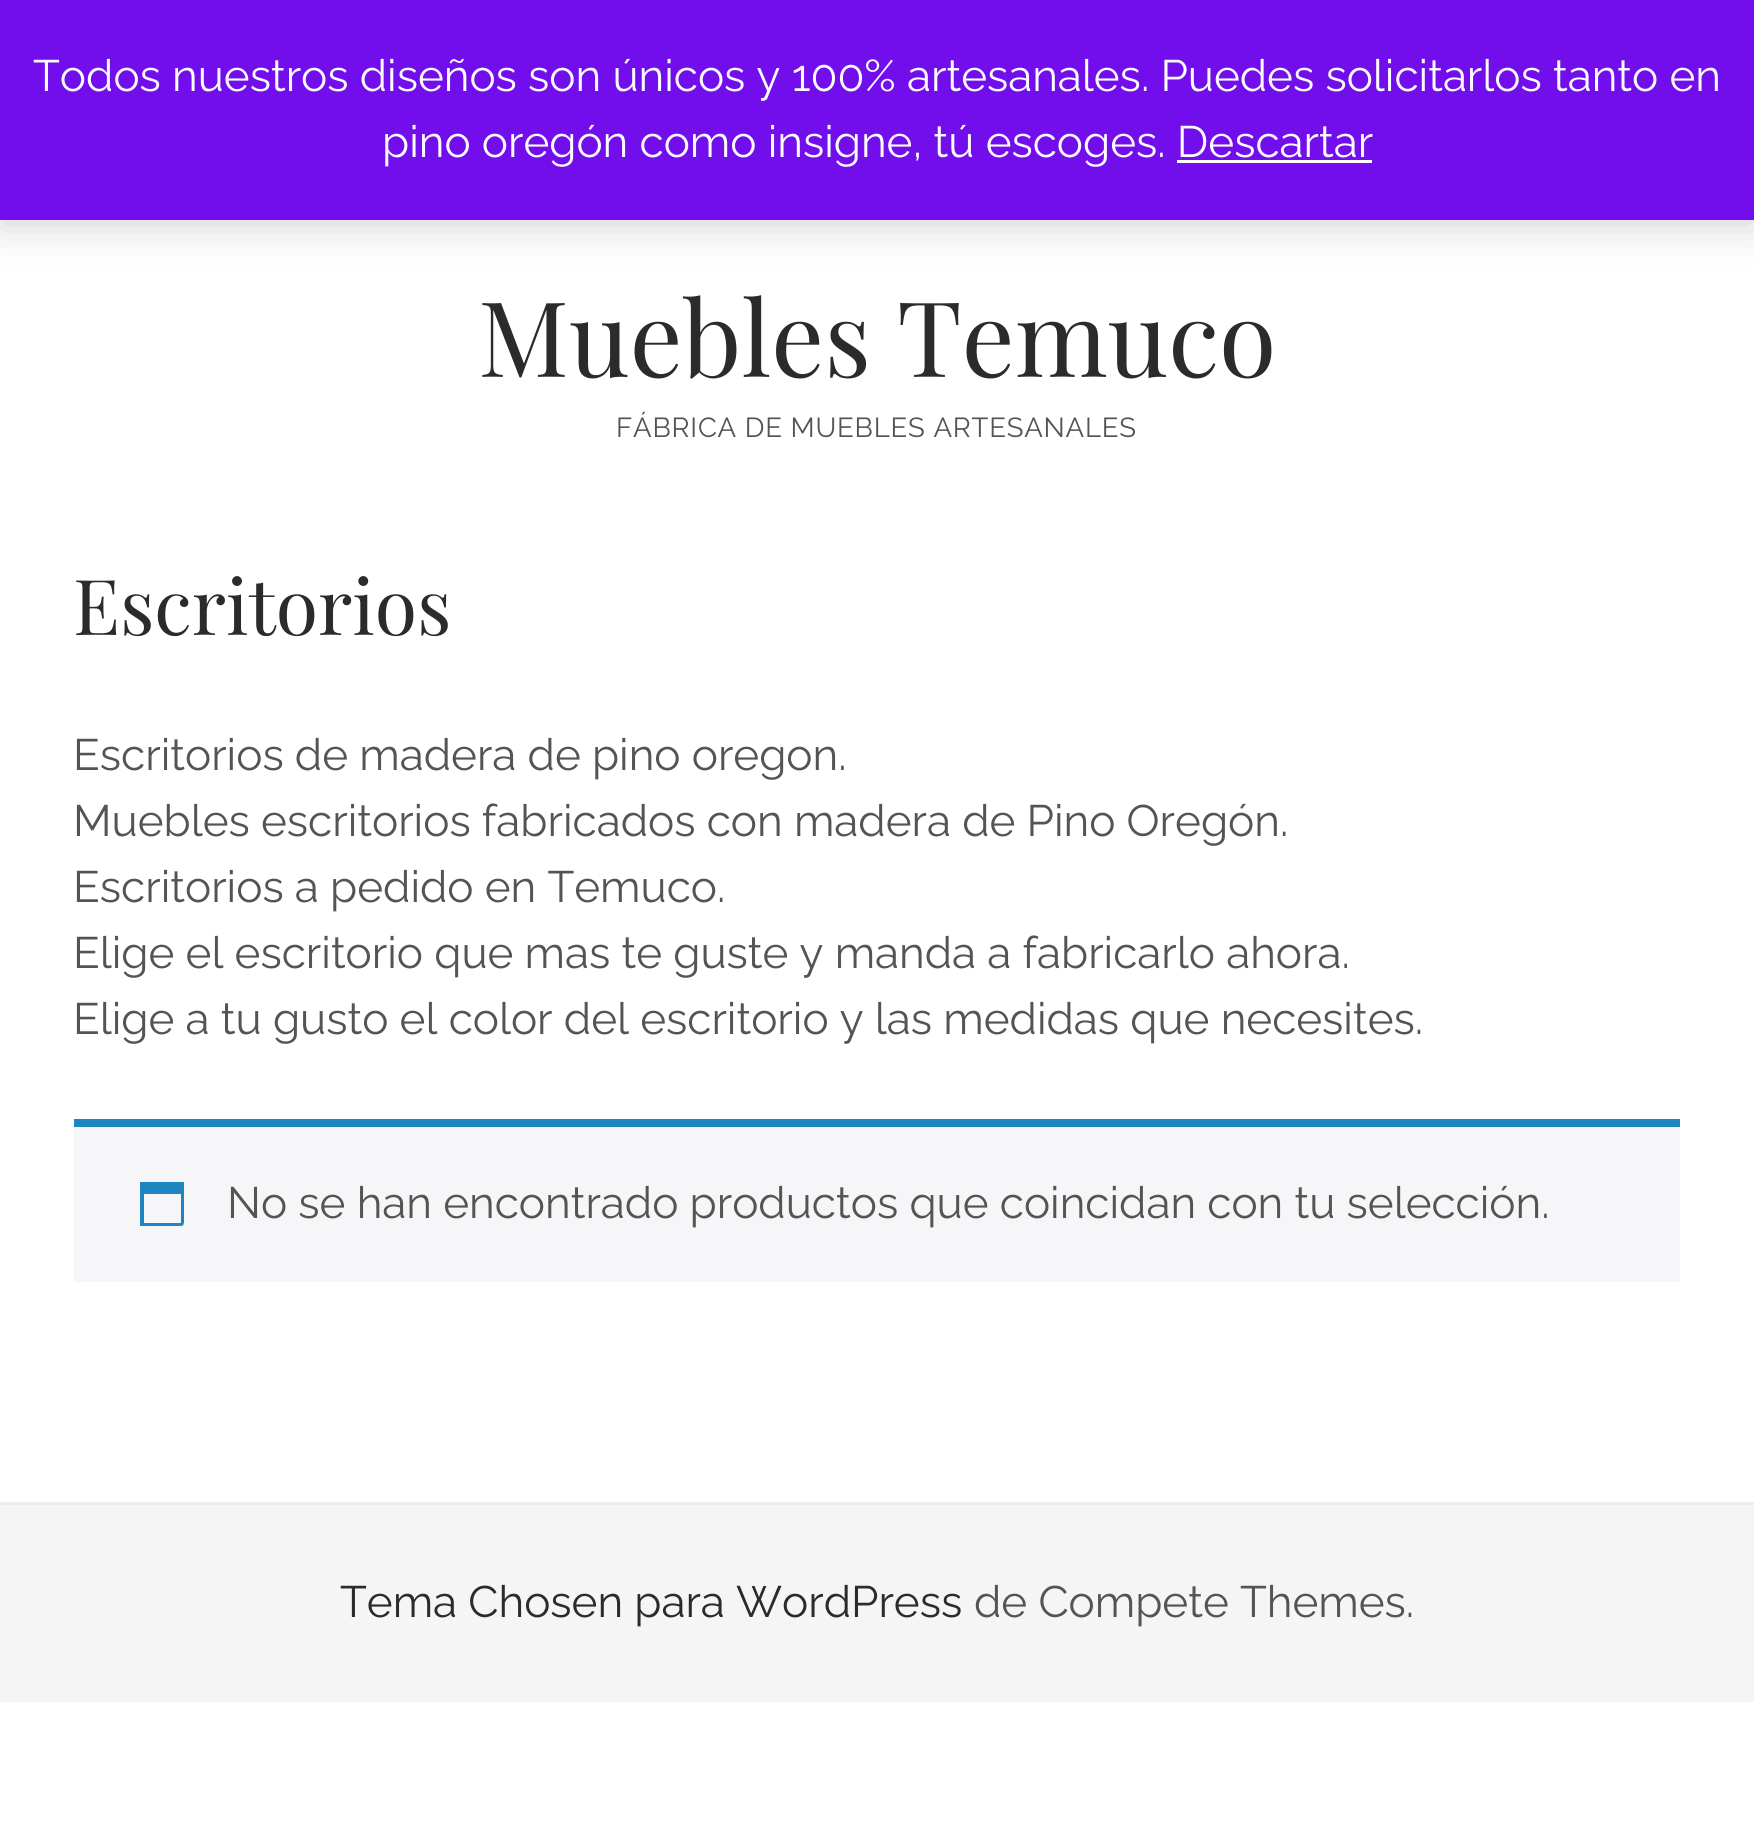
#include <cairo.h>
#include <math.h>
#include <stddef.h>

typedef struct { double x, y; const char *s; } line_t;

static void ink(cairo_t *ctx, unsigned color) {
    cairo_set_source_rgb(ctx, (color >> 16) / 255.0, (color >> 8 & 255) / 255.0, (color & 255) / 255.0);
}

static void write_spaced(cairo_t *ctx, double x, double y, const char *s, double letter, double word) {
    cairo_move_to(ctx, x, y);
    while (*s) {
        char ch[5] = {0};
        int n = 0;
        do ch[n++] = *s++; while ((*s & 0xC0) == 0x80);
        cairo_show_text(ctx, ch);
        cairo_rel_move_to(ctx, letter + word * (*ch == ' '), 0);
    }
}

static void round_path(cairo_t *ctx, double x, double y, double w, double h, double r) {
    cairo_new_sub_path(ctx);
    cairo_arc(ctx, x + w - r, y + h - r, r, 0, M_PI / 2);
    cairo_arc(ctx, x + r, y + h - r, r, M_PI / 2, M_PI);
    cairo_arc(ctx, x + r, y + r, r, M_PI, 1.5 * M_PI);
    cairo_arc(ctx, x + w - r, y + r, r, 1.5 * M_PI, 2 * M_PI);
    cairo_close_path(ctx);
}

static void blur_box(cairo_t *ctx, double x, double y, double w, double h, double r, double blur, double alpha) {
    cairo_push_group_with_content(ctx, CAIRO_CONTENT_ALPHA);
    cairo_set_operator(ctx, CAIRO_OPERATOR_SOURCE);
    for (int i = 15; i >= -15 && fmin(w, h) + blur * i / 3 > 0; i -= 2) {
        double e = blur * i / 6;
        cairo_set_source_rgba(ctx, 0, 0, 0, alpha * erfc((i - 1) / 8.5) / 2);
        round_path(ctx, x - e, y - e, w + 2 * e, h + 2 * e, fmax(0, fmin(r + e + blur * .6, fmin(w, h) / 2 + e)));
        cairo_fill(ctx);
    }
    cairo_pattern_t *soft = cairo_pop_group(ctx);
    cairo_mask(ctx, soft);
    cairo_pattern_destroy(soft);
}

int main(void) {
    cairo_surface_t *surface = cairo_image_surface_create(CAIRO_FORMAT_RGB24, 1754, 1835);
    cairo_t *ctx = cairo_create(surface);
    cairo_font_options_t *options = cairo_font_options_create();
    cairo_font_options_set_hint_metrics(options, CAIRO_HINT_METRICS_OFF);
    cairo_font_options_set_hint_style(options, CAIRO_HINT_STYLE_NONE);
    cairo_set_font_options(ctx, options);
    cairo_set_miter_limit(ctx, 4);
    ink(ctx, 0xFFFFFF);
    cairo_paint(ctx);
    ink(ctx, 0x000000);
    blur_box(ctx, 0, 3, 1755, 220, 0, 22, 0.2);
    ink(ctx, 0x720EEC);
    cairo_rectangle(ctx, 0, 0, 1754, 220);
    cairo_fill(ctx);
    cairo_select_font_face(ctx, "Raleway", CAIRO_FONT_SLANT_NORMAL, CAIRO_FONT_WEIGHT_NORMAL);
    cairo_set_font_size(ctx, 44);
    ink(ctx, 0xFCFBFE);
    cairo_move_to(ctx, 33, 91);
    cairo_show_text(ctx, "Todos nuestros diseños son únicos y 100% artesanales. Puedes solicitarlos tanto en");
    cairo_move_to(ctx, 382, 157);
    cairo_show_text(ctx, "pino oregón como insigne, tú escoges. Descartar");
    cairo_rectangle(ctx, 1177, 160, 195, 3);
    cairo_fill(ctx);
    cairo_select_font_face(ctx, "Playfair Display", CAIRO_FONT_SLANT_NORMAL, CAIRO_FONT_WEIGHT_NORMAL);
    cairo_set_font_size(ctx, 104.5);
    ink(ctx, 0x2B2B2B);
    cairo_move_to(ctx, 478, 377);
    cairo_show_text(ctx, "Muebles Temuco");
    cairo_select_font_face(ctx, "Raleway", CAIRO_FONT_SLANT_NORMAL, CAIRO_FONT_WEIGHT_NORMAL);
    cairo_set_font_size(ctx, 27.5);
    ink(ctx, 0x545454);
    write_spaced(ctx, 616, 437, "FÁBRICA DE MUEBLES ARTESANALES", 0.8, 0);
    cairo_select_font_face(ctx, "Playfair Display", CAIRO_FONT_SLANT_NORMAL, CAIRO_FONT_WEIGHT_NORMAL);
    cairo_set_font_size(ctx, 77);
    ink(ctx, 0x2B2B2B);
    cairo_move_to(ctx, 73, 635);
    cairo_show_text(ctx, "Escritorios");
    cairo_select_font_face(ctx, "Raleway", CAIRO_FONT_SLANT_NORMAL, CAIRO_FONT_WEIGHT_NORMAL);
    cairo_set_font_size(ctx, 44);
    ink(ctx, 0x545454);
    {
        static const line_t items[] = {
            {73, 770, "Escritorios de madera de pino oregon."},
            {73, 836, "Muebles escritorios fabricados con madera de Pino Oregón."},
            {73, 902, "Escritorios a pedido en Temuco."},
            {73, 968, "Elige el escritorio que mas te guste y manda a fabricarlo ahora."},
            {73, 1034, "Elige a tu gusto el color del escritorio y las medidas que necesites."},
        };
        for (size_t i = 0; i < sizeof items / sizeof *items; i++) {
            cairo_move_to(ctx, items[i].x, items[i].y);
            cairo_show_text(ctx, items[i].s);
        }
    }
    ink(ctx, 0xF6F5F8);
    cairo_rectangle(ctx, 74, 1127, 1606, 155);
    cairo_fill(ctx);
    ink(ctx, 0x1E85BE);
    cairo_rectangle(ctx, 74, 1119, 1606, 8);
    cairo_fill(ctx);
    cairo_new_path(ctx);
    cairo_move_to(ctx, 181, 1194);
    cairo_line_to(ctx, 144, 1194);
    cairo_line_to(ctx, 144, 1223);
    cairo_line_to(ctx, 181, 1223);
    cairo_close_path(ctx);
    cairo_move_to(ctx, 184, 1182);
    cairo_line_to(ctx, 184, 1216);
    cairo_curve_to(ctx, 184, 1227, 185, 1226, 174, 1226);
    cairo_line_to(ctx, 140, 1226);
    cairo_line_to(ctx, 140, 1182);
    cairo_close_path(ctx);
    cairo_fill(ctx);
    ink(ctx, 0x545454);
    cairo_move_to(ctx, 227, 1218);
    cairo_show_text(ctx, "No se han encontrado productos que coincidan con tu selección.");
    ink(ctx, 0xF5F5F5);
    cairo_rectangle(ctx, 0, 1505, 1754, 197);
    cairo_fill(ctx);
    ink(ctx, 0xEDEDED);
    cairo_rectangle(ctx, 0, 1502, 1754, 3);
    cairo_fill(ctx);
    ink(ctx, 0x2B2B2B);
    cairo_move_to(ctx, 340, 1617);
    cairo_show_text(ctx, "Tema Chosen para WordPress");
    ink(ctx, 0x545454);
    cairo_move_to(ctx, 974, 1617);
    cairo_show_text(ctx, "de Compete Themes.");
    cairo_surface_write_to_png(surface, "image.png");
    cairo_font_options_destroy(options);
    cairo_destroy(ctx);
    cairo_surface_destroy(surface);
    return 0;
}
